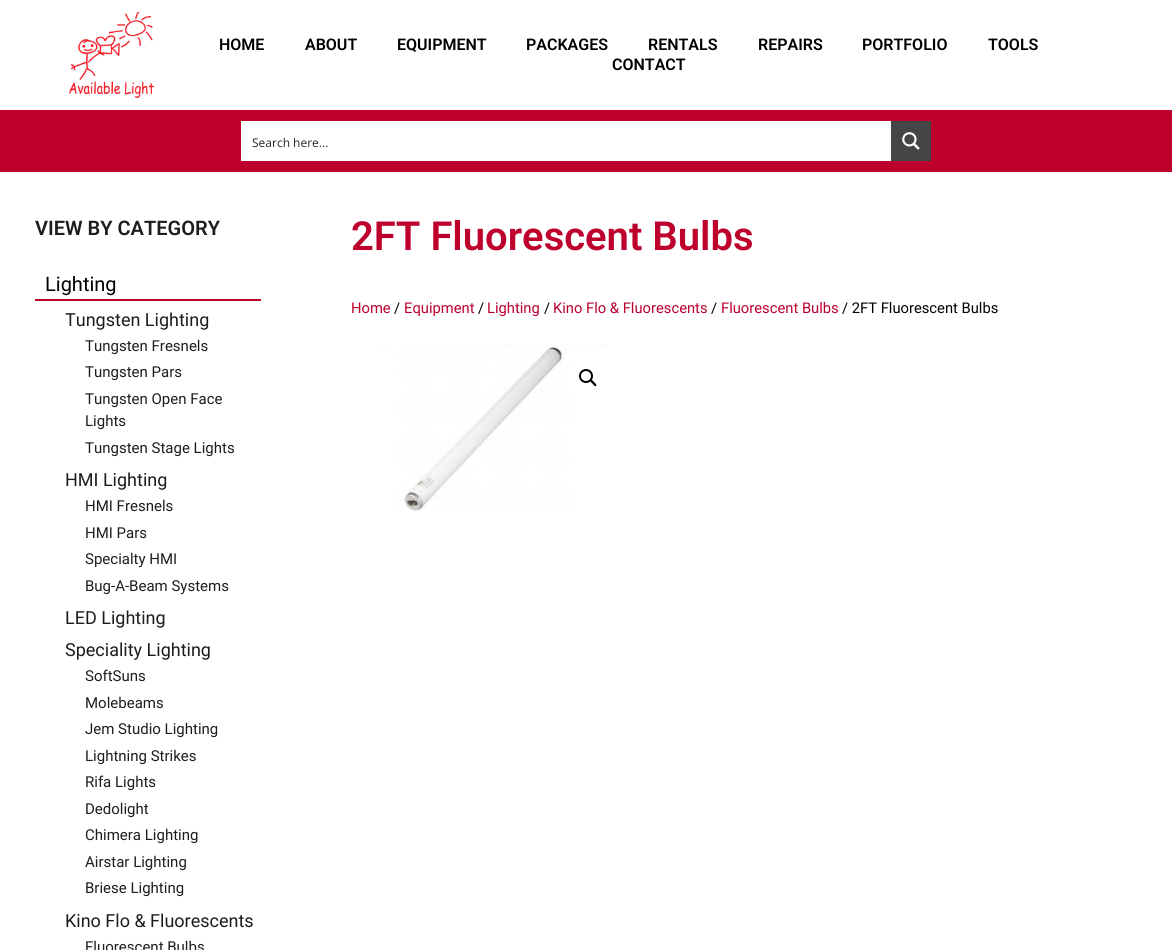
#include <cairo.h>
#include <math.h>
#include <stddef.h>

typedef struct { double x, y; const char *s; } line_t;

static void ink(cairo_t *ctx, unsigned color) {
    cairo_set_source_rgb(ctx, (color >> 16) / 255.0, (color >> 8 & 255) / 255.0, (color & 255) / 255.0);
}

static void paste(cairo_t *ctx, const char *path, double x, double y, double w, double h) {
    cairo_surface_t *image = cairo_image_surface_create_from_png(path);
    cairo_save(ctx);
    cairo_set_source_surface(ctx, image, x, y);
    cairo_rectangle(ctx, x, y, w, h);
    cairo_fill(ctx);
    cairo_restore(ctx);
    cairo_surface_destroy(image);
}

int main(void) {
    cairo_surface_t *surface = cairo_image_surface_create(CAIRO_FORMAT_RGB24, 1172, 950);
    cairo_t *ctx = cairo_create(surface);
    cairo_font_options_t *options = cairo_font_options_create();
    cairo_font_options_set_hint_metrics(options, CAIRO_HINT_METRICS_OFF);
    cairo_font_options_set_hint_style(options, CAIRO_HINT_STYLE_NONE);
    cairo_set_font_options(ctx, options);
    cairo_set_miter_limit(ctx, 4);
    ink(ctx, 0xFFFFFF);
    cairo_paint(ctx);
    paste(ctx, "media/1.png", 69, 12, 85, 86);
    cairo_select_font_face(ctx, "Roboto SemiBold", CAIRO_FONT_SLANT_NORMAL, CAIRO_FONT_WEIGHT_NORMAL);
    cairo_set_font_size(ctx, 16);
    ink(ctx, 0x000000);
    {
        static const line_t items[] = {
            {219, 50, "HOME"},
            {305, 50, "ABOUT"},
            {397, 50, "EQUIPMENT"},
            {526, 50, "PACKAGES"},
            {648, 50, "RENTALS"},
            {758, 50, "REPAIRS"},
            {862, 50, "PORTFOLIO"},
            {988, 50, "TOOLS"},
            {612, 70, "CONTACT"},
        };
        for (size_t i = 0; i < sizeof items / sizeof *items; i++) {
            cairo_move_to(ctx, items[i].x, items[i].y);
            cairo_show_text(ctx, items[i].s);
        }
    }
    ink(ctx, 0xBE002D);
    cairo_rectangle(ctx, 0, 110, 1172, 62);
    cairo_fill(ctx);
    ink(ctx, 0xFFFFFF);
    cairo_rectangle(ctx, 241, 121, 650, 40);
    cairo_fill(ctx);
    cairo_select_font_face(ctx, "Open Sans", CAIRO_FONT_SLANT_NORMAL, CAIRO_FONT_WEIGHT_NORMAL);
    cairo_set_font_size(ctx, 12);
    ink(ctx, 0x262626);
    cairo_move_to(ctx, 252, 147);
    cairo_show_text(ctx, "Search here...");
    ink(ctx, 0x454545);
    cairo_rectangle(ctx, 891, 121, 40, 40);
    cairo_fill(ctx);
    paste(ctx, "media/2.png", 902, 132, 18, 18);
    cairo_select_font_face(ctx, "Roboto SemiBold", CAIRO_FONT_SLANT_NORMAL, CAIRO_FONT_WEIGHT_NORMAL);
    cairo_set_font_size(ctx, 20);
    ink(ctx, 0x1D1D1D);
    cairo_move_to(ctx, 35, 235);
    cairo_show_text(ctx, "VIEW BY CATEGORY");
    ink(ctx, 0xBE002D);
    cairo_rectangle(ctx, 35, 299, 226, 2);
    cairo_fill(ctx);
    cairo_select_font_face(ctx, "Roboto", CAIRO_FONT_SLANT_NORMAL, CAIRO_FONT_WEIGHT_NORMAL);
    ink(ctx, 0x000000);
    cairo_move_to(ctx, 45, 291);
    cairo_show_text(ctx, "Lighting");
    cairo_set_font_size(ctx, 18);
    ink(ctx, 0x1D1D1D);
    cairo_move_to(ctx, 65, 326);
    cairo_show_text(ctx, "Tungsten Lighting");
    cairo_set_font_size(ctx, 15);
    {
        static const line_t items[] = {
            {85, 351, "Tungsten Fresnels"},
            {85, 377, "Tungsten Pars"},
            {85, 404, "Tungsten Open Face"},
            {85, 426, "Lights"},
            {85, 453, "Tungsten Stage Lights"},
        };
        for (size_t i = 0; i < sizeof items / sizeof *items; i++) {
            cairo_move_to(ctx, items[i].x, items[i].y);
            cairo_show_text(ctx, items[i].s);
        }
    }
    cairo_set_font_size(ctx, 18);
    cairo_move_to(ctx, 65, 486);
    cairo_show_text(ctx, "HMI Lighting");
    cairo_set_font_size(ctx, 15);
    {
        static const line_t items[] = {
            {85, 511, "HMI Fresnels"},
            {85, 538, "HMI Pars"},
            {85, 564, "Specialty HMI"},
            {85, 591, "Bug-A-Beam Systems"},
        };
        for (size_t i = 0; i < sizeof items / sizeof *items; i++) {
            cairo_move_to(ctx, items[i].x, items[i].y);
            cairo_show_text(ctx, items[i].s);
        }
    }
    cairo_set_font_size(ctx, 18);
    cairo_move_to(ctx, 65, 624);
    cairo_show_text(ctx, "LED Lighting");
    cairo_move_to(ctx, 65, 656);
    cairo_show_text(ctx, "Speciality Lighting");
    cairo_set_font_size(ctx, 15);
    {
        static const line_t items[] = {
            {85, 681, "SoftSuns"},
            {85, 708, "Molebeams"},
            {85, 734, "Jem Studio Lighting"},
            {85, 761, "Lightning Strikes"},
            {85, 787, "Rifa Lights"},
            {85, 814, "Dedolight"},
            {85, 840, "Chimera Lighting"},
            {85, 867, "Airstar Lighting"},
            {85, 893, "Briese Lighting"},
        };
        for (size_t i = 0; i < sizeof items / sizeof *items; i++) {
            cairo_move_to(ctx, items[i].x, items[i].y);
            cairo_show_text(ctx, items[i].s);
        }
    }
    cairo_set_font_size(ctx, 18);
    cairo_move_to(ctx, 65, 927);
    cairo_show_text(ctx, "Kino Flo & Fluorescents");
    cairo_set_font_size(ctx, 15);
    cairo_move_to(ctx, 85, 952);
    cairo_show_text(ctx, "Fluorescent Bulbs");
    cairo_select_font_face(ctx, "Roboto SemiBold", CAIRO_FONT_SLANT_NORMAL, CAIRO_FONT_WEIGHT_NORMAL);
    cairo_set_font_size(ctx, 40);
    ink(ctx, 0xBE002D);
    cairo_move_to(ctx, 351, 250);
    cairo_show_text(ctx, "2FT Fluorescent Bulbs");
    cairo_select_font_face(ctx, "Roboto", CAIRO_FONT_SLANT_NORMAL, CAIRO_FONT_WEIGHT_NORMAL);
    cairo_set_font_size(ctx, 14.75);
    cairo_move_to(ctx, 351, 313);
    cairo_show_text(ctx, "Home");
    ink(ctx, 0x000000);
    cairo_move_to(ctx, 394, 313);
    cairo_show_text(ctx, "/");
    ink(ctx, 0xBE002D);
    cairo_move_to(ctx, 404, 313);
    cairo_show_text(ctx, "Equipment");
    ink(ctx, 0x000000);
    cairo_move_to(ctx, 478, 313);
    cairo_show_text(ctx, "/");
    ink(ctx, 0xBE002D);
    cairo_move_to(ctx, 487, 313);
    cairo_show_text(ctx, "Lighting");
    ink(ctx, 0x000000);
    cairo_move_to(ctx, 544, 313);
    cairo_show_text(ctx, "/");
    ink(ctx, 0xBE002D);
    cairo_move_to(ctx, 553, 313);
    cairo_show_text(ctx, "Kino Flo & Fluorescents");
    ink(ctx, 0x000000);
    cairo_move_to(ctx, 711, 313);
    cairo_show_text(ctx, "/");
    ink(ctx, 0xBE002D);
    cairo_move_to(ctx, 721, 313);
    cairo_show_text(ctx, "Fluorescent Bulbs");
    ink(ctx, 0x000000);
    cairo_move_to(ctx, 842, 313);
    cairo_show_text(ctx, "/ 2FT Fluorescent Bulbs");
    paste(ctx, "media/3.png", 381, 344, 226, 167);
    cairo_arc(ctx, 586, 376, 6, 0, 2 * M_PI);
    cairo_stroke(ctx);
    cairo_new_path(ctx);
    cairo_move_to(ctx, 590.5, 380);
    cairo_curve_to(ctx, 591.5, 379, 593.5, 381.5, 594, 382);
    cairo_curve_to(ctx, 594.5, 383, 597.5, 384.5, 596, 386);
    cairo_curve_to(ctx, 595, 387, 593, 384.5, 592.5, 383.5);
    cairo_curve_to(ctx, 592, 383, 589, 381.5, 590.5, 380);
    cairo_close_path(ctx);
    cairo_fill(ctx);
    cairo_surface_write_to_png(surface, "image.png");
    cairo_font_options_destroy(options);
    cairo_destroy(ctx);
    cairo_surface_destroy(surface);
    return 0;
}
